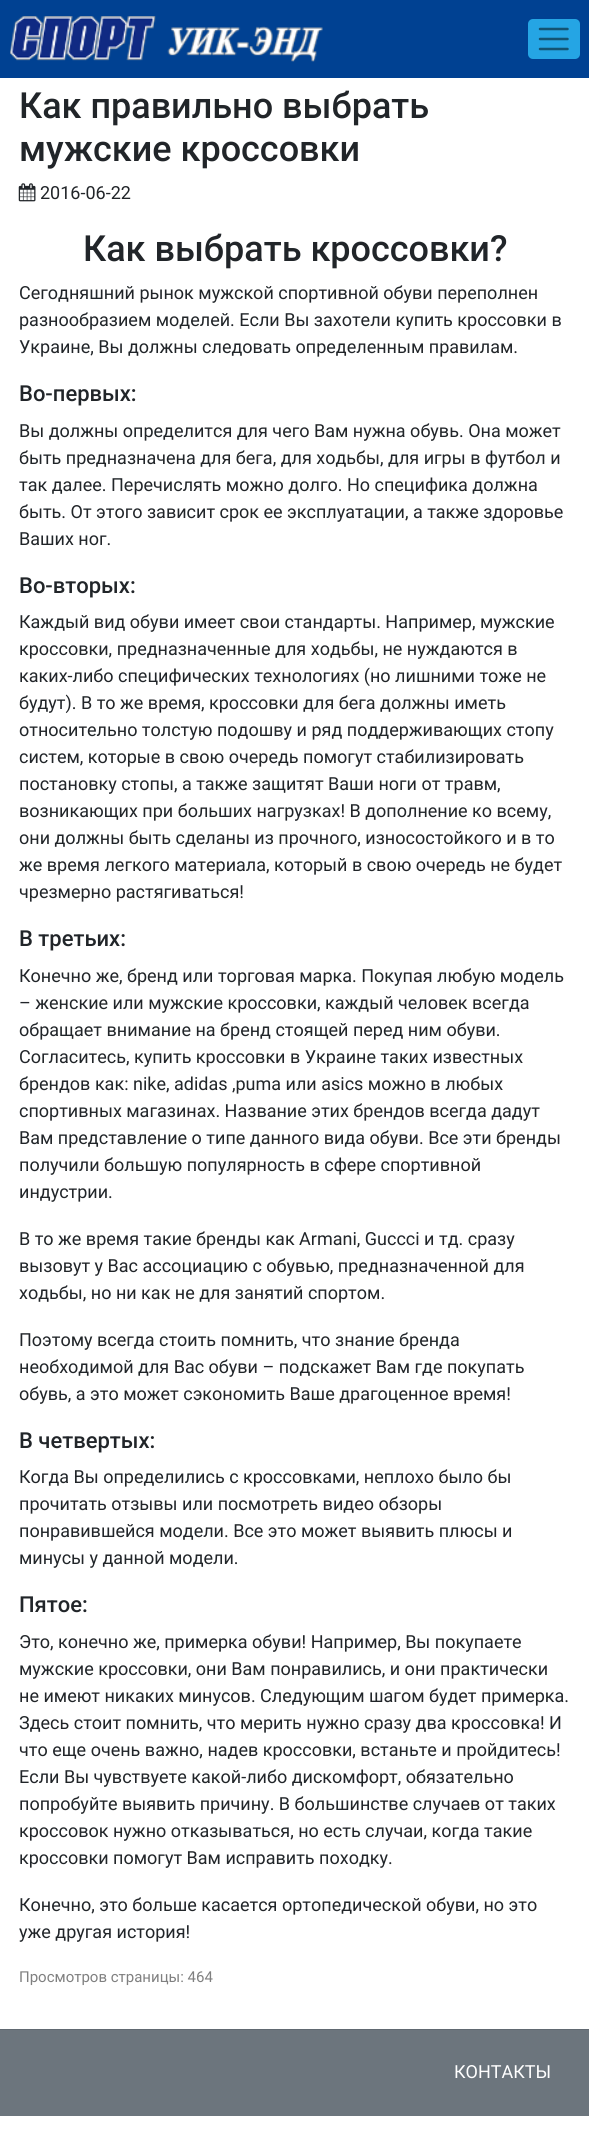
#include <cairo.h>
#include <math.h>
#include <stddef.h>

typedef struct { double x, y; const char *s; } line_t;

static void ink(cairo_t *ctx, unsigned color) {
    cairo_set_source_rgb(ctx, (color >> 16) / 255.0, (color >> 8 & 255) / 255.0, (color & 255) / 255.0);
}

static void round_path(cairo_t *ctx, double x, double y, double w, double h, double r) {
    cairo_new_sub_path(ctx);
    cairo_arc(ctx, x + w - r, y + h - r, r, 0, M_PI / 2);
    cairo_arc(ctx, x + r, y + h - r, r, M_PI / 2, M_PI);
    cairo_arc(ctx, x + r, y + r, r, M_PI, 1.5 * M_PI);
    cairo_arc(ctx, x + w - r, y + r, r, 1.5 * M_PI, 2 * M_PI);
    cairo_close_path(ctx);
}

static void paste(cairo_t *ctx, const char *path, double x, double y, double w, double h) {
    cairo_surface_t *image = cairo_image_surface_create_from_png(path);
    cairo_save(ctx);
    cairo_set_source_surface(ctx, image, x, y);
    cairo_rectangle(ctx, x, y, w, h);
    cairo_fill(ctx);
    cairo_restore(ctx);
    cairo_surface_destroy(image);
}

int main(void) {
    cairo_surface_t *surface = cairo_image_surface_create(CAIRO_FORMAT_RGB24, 589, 2152);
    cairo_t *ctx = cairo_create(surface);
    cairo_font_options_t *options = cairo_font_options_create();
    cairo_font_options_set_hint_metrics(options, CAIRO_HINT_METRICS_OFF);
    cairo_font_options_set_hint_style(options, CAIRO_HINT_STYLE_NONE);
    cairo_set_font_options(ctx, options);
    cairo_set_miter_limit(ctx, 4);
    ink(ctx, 0xFFFFFF);
    cairo_paint(ctx);
    ink(ctx, 0x004192);
    cairo_rectangle(ctx, 0, 0, 589, 78);
    cairo_fill(ctx);
    paste(ctx, "media/1.png", 10, 16, 313, 46);
    ink(ctx, 0x25A5E4);
    round_path(ctx, 528, 19, 52, 40, 5);
    cairo_fill(ctx);
    cairo_new_path(ctx);
    cairo_move_to(ctx, 540, 29);
    cairo_line_to(ctx, 567.5, 29);
    cairo_move_to(ctx, 540, 39);
    cairo_line_to(ctx, 567.5, 39);
    cairo_move_to(ctx, 540, 49);
    cairo_line_to(ctx, 567.5, 49);
    ink(ctx, 0x135372);
    cairo_set_line_width(ctx, 2.5);
    cairo_set_line_cap(ctx, CAIRO_LINE_CAP_ROUND);
    cairo_stroke(ctx);
    cairo_select_font_face(ctx, "Roboto Medium", CAIRO_FONT_SLANT_NORMAL, CAIRO_FONT_WEIGHT_NORMAL);
    cairo_set_font_size(ctx, 36);
    ink(ctx, 0x212529);
    cairo_move_to(ctx, 19, 118);
    cairo_show_text(ctx, "Как правильно выбрать");
    cairo_move_to(ctx, 19, 161);
    cairo_show_text(ctx, "мужские кроссовки");
    paste(ctx, "media/2.png", 18, 183, 18, 19);
    cairo_select_font_face(ctx, "Roboto", CAIRO_FONT_SLANT_NORMAL, CAIRO_FONT_WEIGHT_NORMAL);
    cairo_set_font_size(ctx, 18);
    cairo_move_to(ctx, 40, 199);
    cairo_show_text(ctx, "2016-06-22");
    cairo_select_font_face(ctx, "Roboto Medium", CAIRO_FONT_SLANT_NORMAL, CAIRO_FONT_WEIGHT_NORMAL);
    cairo_set_font_size(ctx, 36);
    cairo_move_to(ctx, 83, 261);
    cairo_show_text(ctx, "Как выбрать кроссовки?");
    cairo_select_font_face(ctx, "Roboto", CAIRO_FONT_SLANT_NORMAL, CAIRO_FONT_WEIGHT_NORMAL);
    cairo_set_font_size(ctx, 18);
    {
        static const line_t items[] = {
            {19, 299, "Сегодняшний рынок мужской спортивной обуви переполнен"},
            {19, 326, "разнообразием моделей. Если Вы захотели купить кроссовки в"},
            {19, 353, "Украине, Вы должны следовать определенным правилам."},
        };
        for (size_t i = 0; i < sizeof items / sizeof *items; i++) {
            cairo_move_to(ctx, items[i].x, items[i].y);
            cairo_show_text(ctx, items[i].s);
        }
    }
    cairo_select_font_face(ctx, "Roboto Medium", CAIRO_FONT_SLANT_NORMAL, CAIRO_FONT_WEIGHT_NORMAL);
    cairo_set_font_size(ctx, 22);
    cairo_move_to(ctx, 19, 401);
    cairo_show_text(ctx, "Во-первых:");
    cairo_select_font_face(ctx, "Roboto", CAIRO_FONT_SLANT_NORMAL, CAIRO_FONT_WEIGHT_NORMAL);
    cairo_set_font_size(ctx, 18);
    {
        static const line_t items[] = {
            {19, 437, "Вы должны определится для чего Вам нужна обувь. Она может"},
            {19, 464, "быть предназначена для бега, для ходьбы, для игры в футбол и"},
            {19, 491, "так далее. Перечислять можно долго. Но специфика должна"},
            {19, 518, "быть. От этого зависит срок ее эксплуатации, а также здоровье"},
            {19, 545, "Ваших ног."},
        };
        for (size_t i = 0; i < sizeof items / sizeof *items; i++) {
            cairo_move_to(ctx, items[i].x, items[i].y);
            cairo_show_text(ctx, items[i].s);
        }
    }
    cairo_select_font_face(ctx, "Roboto Medium", CAIRO_FONT_SLANT_NORMAL, CAIRO_FONT_WEIGHT_NORMAL);
    cairo_set_font_size(ctx, 22);
    cairo_move_to(ctx, 19, 593);
    cairo_show_text(ctx, "Во-вторых:");
    cairo_select_font_face(ctx, "Roboto", CAIRO_FONT_SLANT_NORMAL, CAIRO_FONT_WEIGHT_NORMAL);
    cairo_set_font_size(ctx, 18);
    {
        static const line_t items[] = {
            {19, 628, "Каждый вид обуви имеет свои стандарты. Например, мужские"},
            {19, 655, "кроссовки, предназначенные для ходьбы, не нуждаются в"},
            {19, 682, "каких-либо специфических технологиях (но лишними тоже не"},
            {19, 709, "будут). В то же время, кроссовки для бега должны иметь"},
            {19, 736, "относительно толстую подошву и ряд поддерживающих стопу"},
            {19, 763, "систем, которые в свою очередь помогут стабилизировать"},
            {19, 790, "постановку стопы, а также защитят Ваши ноги от травм,"},
            {19, 817, "возникающих при больших нагрузках! В дополнение ко всему,"},
            {19, 844, "они должны быть сделаны из прочного, износостойкого и в то"},
            {19, 871, "же время легкого материала, который в свою очередь не будет"},
            {19, 898, "чрезмерно растягиваться!"},
        };
        for (size_t i = 0; i < sizeof items / sizeof *items; i++) {
            cairo_move_to(ctx, items[i].x, items[i].y);
            cairo_show_text(ctx, items[i].s);
        }
    }
    cairo_select_font_face(ctx, "Roboto Medium", CAIRO_FONT_SLANT_NORMAL, CAIRO_FONT_WEIGHT_NORMAL);
    cairo_set_font_size(ctx, 22);
    cairo_move_to(ctx, 19, 946);
    cairo_show_text(ctx, "В третьих:");
    cairo_select_font_face(ctx, "Roboto", CAIRO_FONT_SLANT_NORMAL, CAIRO_FONT_WEIGHT_NORMAL);
    cairo_set_font_size(ctx, 18);
    {
        static const line_t items[] = {
            {19, 982, "Конечно же, бренд или торговая марка. Покупая любую модель"},
            {19, 1009, "– женские или мужские кроссовки, каждый человек всегда"},
            {19, 1036, "обращает внимание на бренд стоящей перед ним обуви."},
            {19, 1063, "Согласитесь, купить кроссовки в Украине таких известных"},
            {19, 1090, "брендов как: nike, adidas ,puma или asics можно в любых"},
            {19, 1117, "спортивных магазинах. Название этих брендов всегда дадут"},
            {19, 1144, "Вам представление о типе данного вида обуви. Все эти бренды"},
            {19, 1171, "получили большую популярность в сфере спортивной"},
            {19, 1198, "индустрии."},
            {19, 1245, "В то же время такие бренды как Armani, Guccci и тд. сразу"},
            {19, 1272, "вызовут у Вас ассоциацию с обувью, предназначенной для"},
            {19, 1299, "ходьбы, но ни как не для занятий спортом."},
            {19, 1346, "Поэтому всегда стоить помнить, что знание бренда"},
            {19, 1373, "необходимой для Вас обуви – подскажет Вам где покупать"},
            {19, 1400, "обувь, а это может сэкономить Ваше драгоценное время!"},
        };
        for (size_t i = 0; i < sizeof items / sizeof *items; i++) {
            cairo_move_to(ctx, items[i].x, items[i].y);
            cairo_show_text(ctx, items[i].s);
        }
    }
    cairo_select_font_face(ctx, "Roboto Medium", CAIRO_FONT_SLANT_NORMAL, CAIRO_FONT_WEIGHT_NORMAL);
    cairo_set_font_size(ctx, 22);
    cairo_move_to(ctx, 19, 1448);
    cairo_show_text(ctx, "В четвертых:");
    cairo_select_font_face(ctx, "Roboto", CAIRO_FONT_SLANT_NORMAL, CAIRO_FONT_WEIGHT_NORMAL);
    cairo_set_font_size(ctx, 18);
    {
        static const line_t items[] = {
            {19, 1483, "Когда Вы определились с кроссовками, неплохо было бы"},
            {19, 1510, "прочитать отзывы или посмотреть видео обзоры"},
            {19, 1537, "понравившейся модели. Все это может выявить плюсы и"},
            {19, 1564, "минусы у данной модели."},
        };
        for (size_t i = 0; i < sizeof items / sizeof *items; i++) {
            cairo_move_to(ctx, items[i].x, items[i].y);
            cairo_show_text(ctx, items[i].s);
        }
    }
    cairo_select_font_face(ctx, "Roboto Medium", CAIRO_FONT_SLANT_NORMAL, CAIRO_FONT_WEIGHT_NORMAL);
    cairo_set_font_size(ctx, 22);
    cairo_move_to(ctx, 19, 1612);
    cairo_show_text(ctx, "Пятое:");
    cairo_select_font_face(ctx, "Roboto", CAIRO_FONT_SLANT_NORMAL, CAIRO_FONT_WEIGHT_NORMAL);
    cairo_set_font_size(ctx, 18);
    {
        static const line_t items[] = {
            {19, 1648, "Это, конечно же, примерка обуви! Например, Вы покупаете"},
            {19, 1675, "мужские кроссовки, они Вам понравились, и они практически"},
            {19, 1702, "не имеют никаких минусов. Следующим шагом будет примерка."},
            {19, 1729, "Здесь стоит помнить, что мерить нужно сразу два кроссовка! И"},
            {19, 1756, "что еще очень важно, надев кроссовки, встаньте и пройдитесь!"},
            {19, 1783, "Если Вы чувствуете какой-либо дискомфорт, обязательно"},
            {19, 1810, "попробуйте выявить причину. В большинстве случаев от таких"},
            {19, 1837, "кроссовок нужно отказываться, но есть случаи, когда такие"},
            {19, 1864, "кроссовки помогут Вам исправить походку."},
            {19, 1911, "Конечно, это больше касается ортопедической обуви, но это"},
            {19, 1938, "уже другая история!"},
        };
        for (size_t i = 0; i < sizeof items / sizeof *items; i++) {
            cairo_move_to(ctx, items[i].x, items[i].y);
            cairo_show_text(ctx, items[i].s);
        }
    }
    cairo_set_font_size(ctx, 15);
    ink(ctx, 0x808080);
    cairo_move_to(ctx, 19, 1982);
    cairo_show_text(ctx, "Просмотров страницы: 464");
    ink(ctx, 0x6C757D);
    cairo_rectangle(ctx, 0, 2030, 589, 86);
    cairo_fill(ctx);
    ink(ctx, 0x616971);
    cairo_rectangle(ctx, 0, 2029, 589, 1);
    cairo_fill(ctx);
    cairo_set_font_size(ctx, 18);
    ink(ctx, 0xFFFFFF);
    cairo_move_to(ctx, 454, 2078);
    cairo_show_text(ctx, "КОНТАКТЫ");
    cairo_surface_write_to_png(surface, "image.png");
    cairo_font_options_destroy(options);
    cairo_destroy(ctx);
    cairo_surface_destroy(surface);
    return 0;
}
